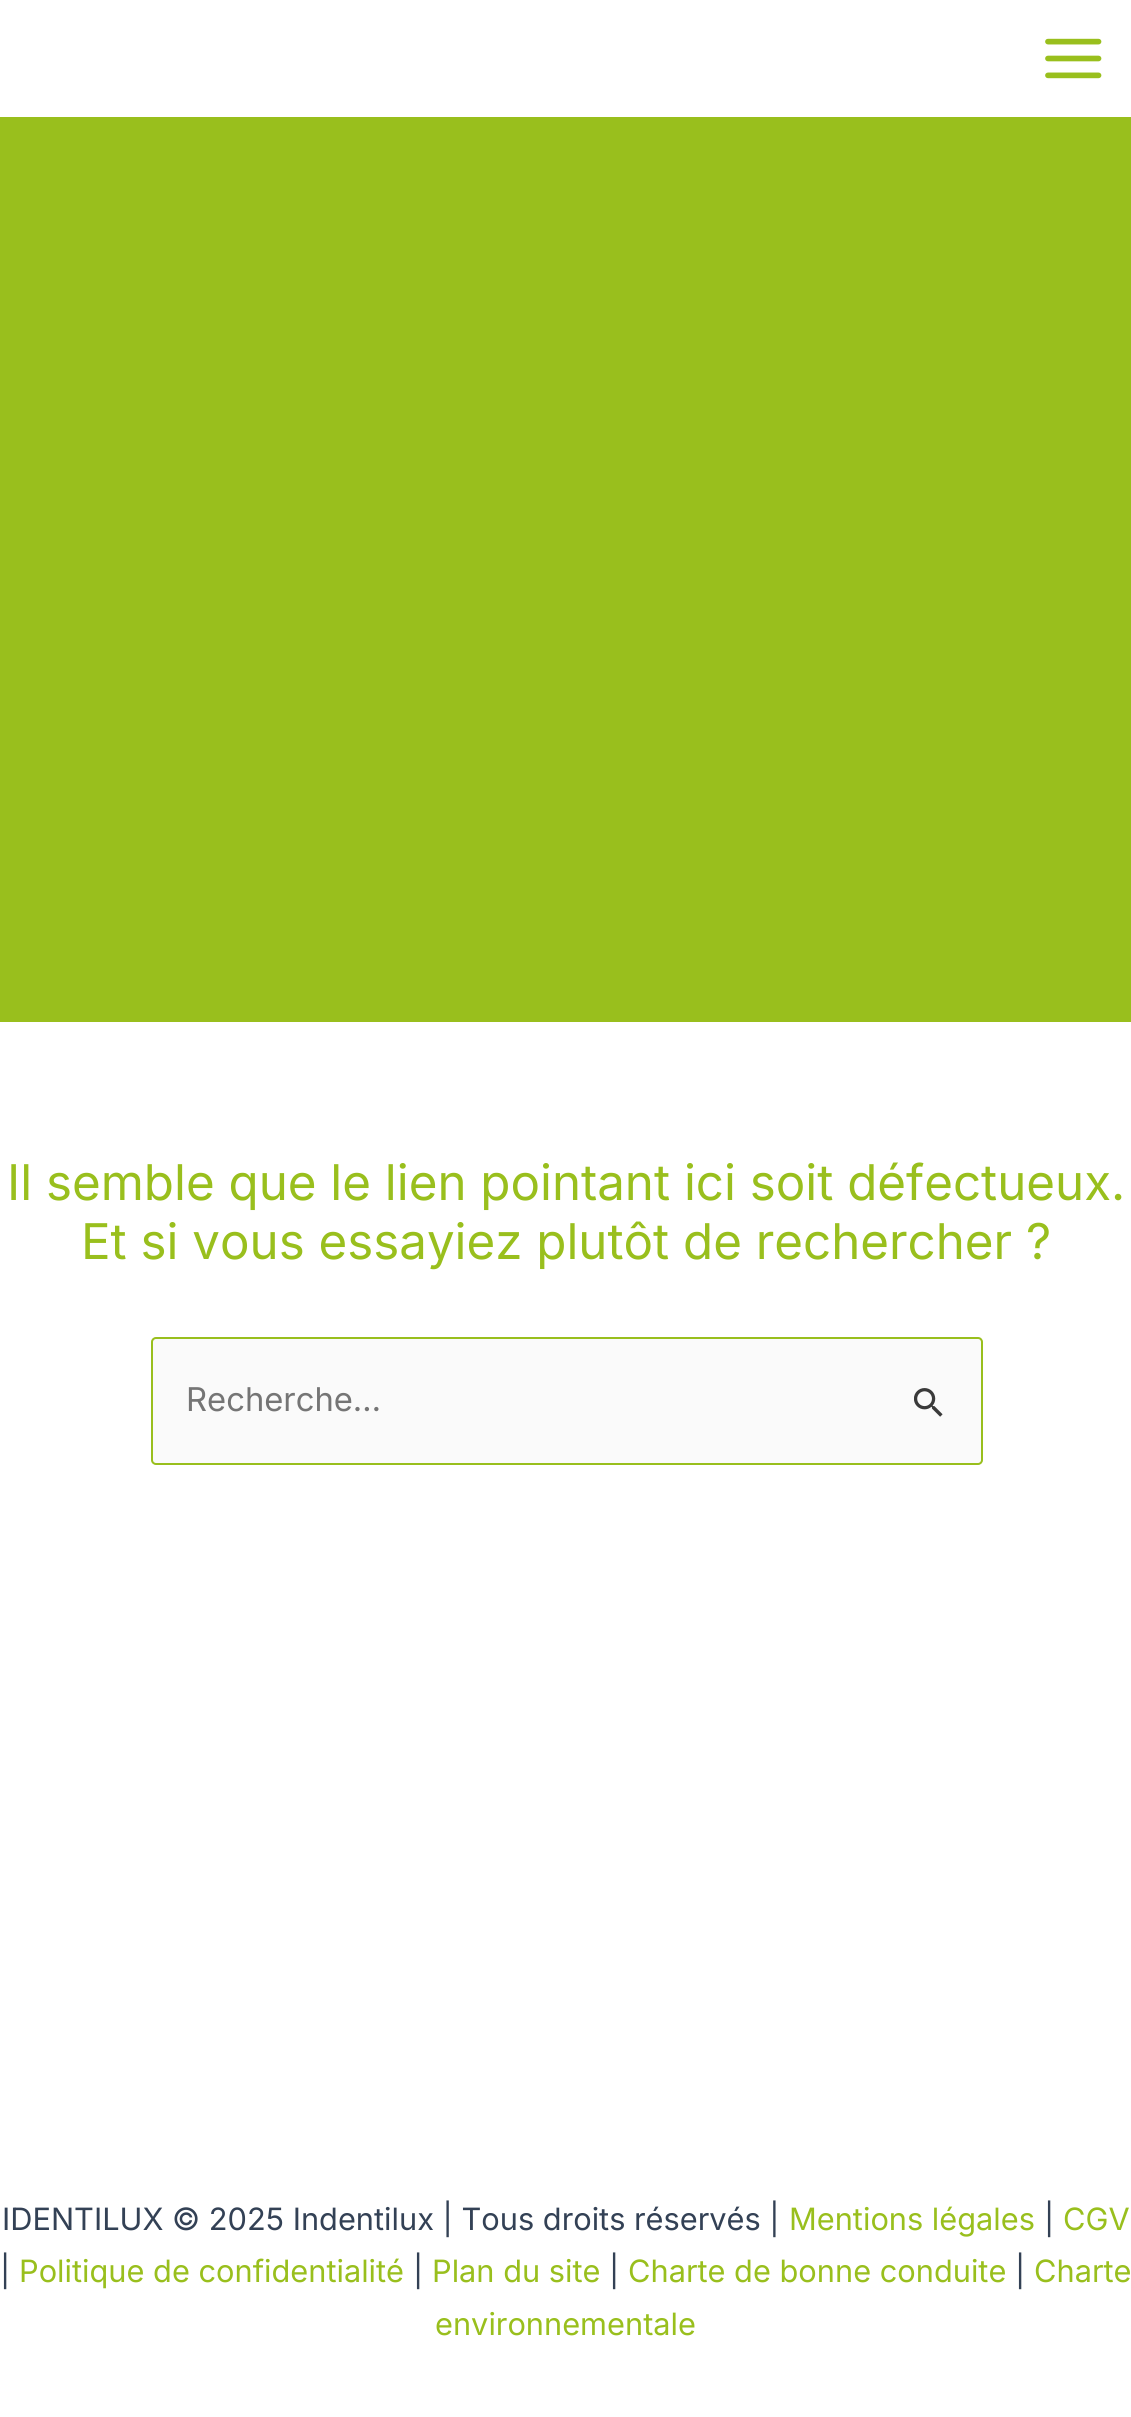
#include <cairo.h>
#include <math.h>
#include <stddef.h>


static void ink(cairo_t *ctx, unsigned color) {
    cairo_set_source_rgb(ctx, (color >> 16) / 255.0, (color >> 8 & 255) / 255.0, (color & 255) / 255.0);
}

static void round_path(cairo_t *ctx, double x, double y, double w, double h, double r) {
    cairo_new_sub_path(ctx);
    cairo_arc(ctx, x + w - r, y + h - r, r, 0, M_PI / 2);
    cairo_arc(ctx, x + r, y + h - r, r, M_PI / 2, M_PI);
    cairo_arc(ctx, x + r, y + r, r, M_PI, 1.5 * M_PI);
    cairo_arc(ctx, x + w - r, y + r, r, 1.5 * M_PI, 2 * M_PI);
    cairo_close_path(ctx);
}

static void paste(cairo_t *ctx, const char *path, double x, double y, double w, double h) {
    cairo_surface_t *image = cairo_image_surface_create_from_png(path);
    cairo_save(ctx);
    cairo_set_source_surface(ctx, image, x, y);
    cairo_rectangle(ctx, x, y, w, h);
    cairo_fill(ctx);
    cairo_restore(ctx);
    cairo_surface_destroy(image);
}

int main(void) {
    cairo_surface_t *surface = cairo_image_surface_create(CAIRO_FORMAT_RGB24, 1131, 2417);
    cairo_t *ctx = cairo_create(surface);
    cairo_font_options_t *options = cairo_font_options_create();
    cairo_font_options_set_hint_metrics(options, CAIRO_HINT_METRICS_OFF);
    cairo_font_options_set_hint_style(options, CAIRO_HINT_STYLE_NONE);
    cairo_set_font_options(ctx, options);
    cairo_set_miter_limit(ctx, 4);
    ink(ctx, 0xFFFFFF);
    cairo_paint(ctx);
    paste(ctx, "media/1.png", 1045, 38, 57, 41);
    ink(ctx, 0x99BF1D);
    cairo_rectangle(ctx, 0, 117, 1131, 905);
    cairo_fill(ctx);
    cairo_select_font_face(ctx, "Inter", CAIRO_FONT_SLANT_NORMAL, CAIRO_FONT_WEIGHT_NORMAL);
    cairo_set_font_size(ctx, 49.25);
    cairo_move_to(ctx, 7, 1200);
    cairo_show_text(ctx, "Il semble que le lien pointant ici soit défectueux.");
    cairo_move_to(ctx, 81, 1259);
    cairo_show_text(ctx, "Et si vous essayiez plutôt de rechercher ?");
    ink(ctx, 0xFAFAFA);
    round_path(ctx, 152, 1338, 830, 126, 4);
    cairo_fill_preserve(ctx);
    ink(ctx, 0x99BF1D);
    cairo_stroke(ctx);
    cairo_set_font_size(ctx, 32.75);
    ink(ctx, 0x757575);
    cairo_move_to(ctx, 186, 1411);
    cairo_show_text(ctx, "Recherche…");
    paste(ctx, "media/2.png", 914, 1388, 29, 29);
    cairo_set_font_size(ctx, 30.75);
    ink(ctx, 0x334155);
    cairo_move_to(ctx, 2, 2230);
    cairo_show_text(ctx, "IDENTILUX © 2025 Indentilux | Tous droits réservés |");
    ink(ctx, 0x99BF1D);
    cairo_move_to(ctx, 789, 2230);
    cairo_show_text(ctx, "Mentions légales");
    ink(ctx, 0x334155);
    cairo_move_to(ctx, 1044, 2230);
    cairo_show_text(ctx, "|");
    ink(ctx, 0x99BF1D);
    cairo_move_to(ctx, 1063, 2230);
    cairo_show_text(ctx, "CGV");
    ink(ctx, 0x334155);
    cairo_move_to(ctx, 0, 2282);
    cairo_show_text(ctx, "|");
    ink(ctx, 0x99BF1D);
    cairo_move_to(ctx, 19, 2282);
    cairo_show_text(ctx, "Politique de confidentialité");
    ink(ctx, 0x334155);
    cairo_move_to(ctx, 413, 2282);
    cairo_show_text(ctx, "|");
    ink(ctx, 0x99BF1D);
    cairo_move_to(ctx, 432, 2282);
    cairo_show_text(ctx, "Plan du site");
    ink(ctx, 0x334155);
    cairo_move_to(ctx, 609, 2282);
    cairo_show_text(ctx, "|");
    ink(ctx, 0x99BF1D);
    cairo_move_to(ctx, 628, 2282);
    cairo_show_text(ctx, "Charte de bonne conduite");
    ink(ctx, 0x334155);
    cairo_move_to(ctx, 1015, 2282);
    cairo_show_text(ctx, "|");
    ink(ctx, 0x99BF1D);
    cairo_move_to(ctx, 1034, 2282);
    cairo_show_text(ctx, "Charte");
    cairo_move_to(ctx, 435, 2335);
    cairo_show_text(ctx, "environnementale");
    cairo_surface_write_to_png(surface, "image.png");
    cairo_font_options_destroy(options);
    cairo_destroy(ctx);
    cairo_surface_destroy(surface);
    return 0;
}
